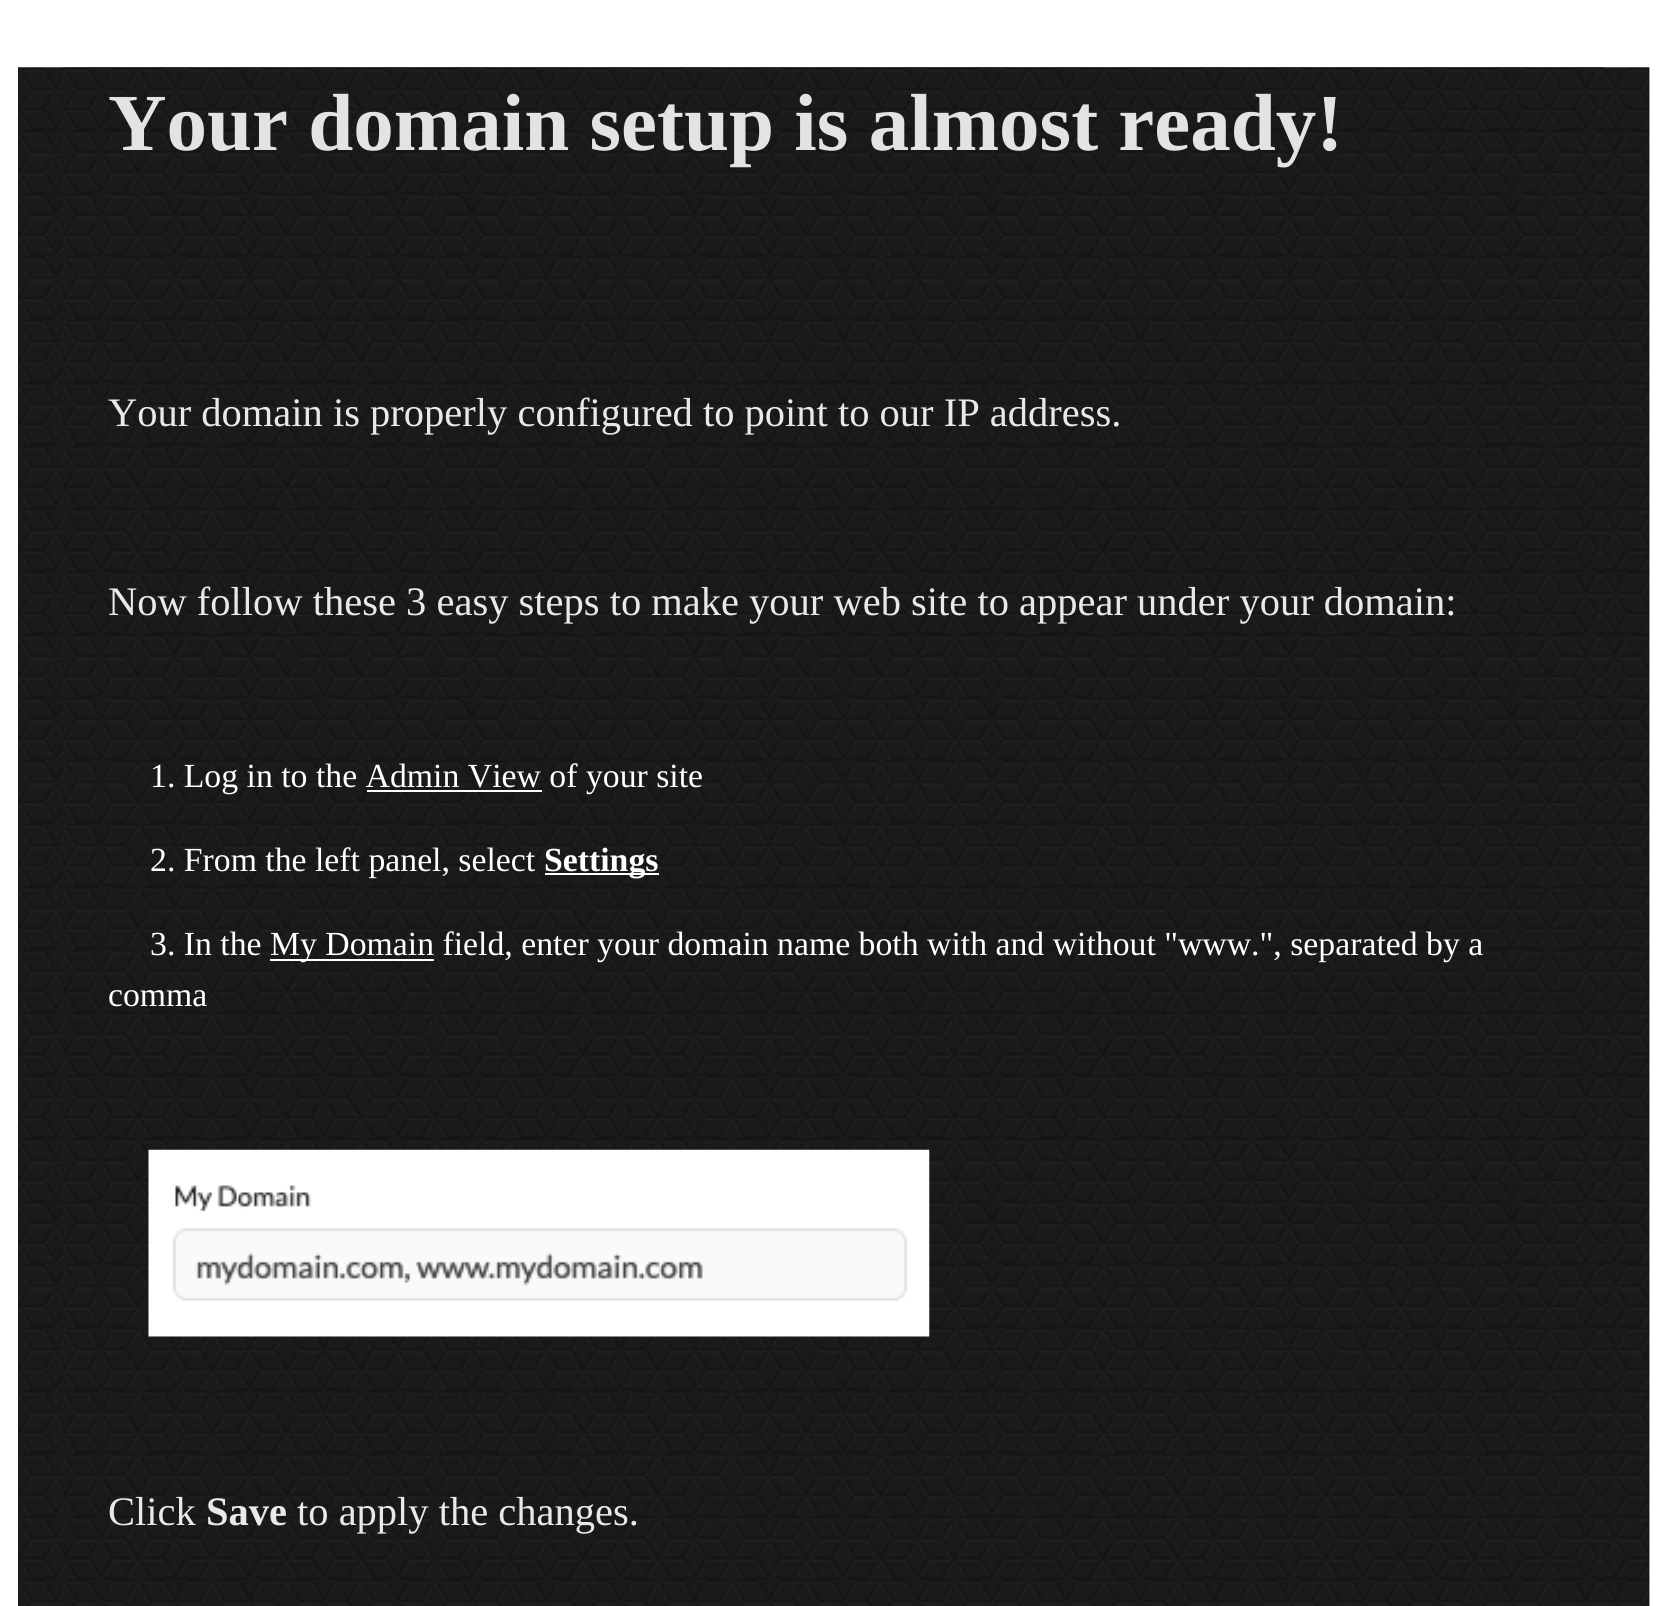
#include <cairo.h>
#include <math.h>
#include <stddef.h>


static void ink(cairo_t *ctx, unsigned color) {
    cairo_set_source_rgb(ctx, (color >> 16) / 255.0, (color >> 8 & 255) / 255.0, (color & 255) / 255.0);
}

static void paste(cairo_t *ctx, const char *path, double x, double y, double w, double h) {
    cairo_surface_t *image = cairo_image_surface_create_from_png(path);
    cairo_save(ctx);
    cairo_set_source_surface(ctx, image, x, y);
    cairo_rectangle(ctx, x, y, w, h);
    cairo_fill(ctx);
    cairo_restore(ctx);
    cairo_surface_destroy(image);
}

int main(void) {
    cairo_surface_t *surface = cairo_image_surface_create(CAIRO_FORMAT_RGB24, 1666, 1606);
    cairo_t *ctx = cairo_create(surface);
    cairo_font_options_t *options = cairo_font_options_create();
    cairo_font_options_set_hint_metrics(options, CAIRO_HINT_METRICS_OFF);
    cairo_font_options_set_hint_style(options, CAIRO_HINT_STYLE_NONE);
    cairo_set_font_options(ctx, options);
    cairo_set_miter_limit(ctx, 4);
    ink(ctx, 0xFFFFFF);
    cairo_paint(ctx);
    paste(ctx, "media/1.png", 18, 67, 1632, 1539);
    paste(ctx, "media/2.png", 18, 67, 1632, 1539);
    paste(ctx, "media/3.png", 63, 67, 1542, 1539);
    cairo_select_font_face(ctx, "Liberation Serif", CAIRO_FONT_SLANT_NORMAL, CAIRO_FONT_WEIGHT_BOLD);
    cairo_set_font_size(ctx, 81);
    ink(ctx, 0xE3E3E3);
    cairo_move_to(ctx, 108, 150);
    cairo_show_text(ctx, "Your domain setup is almost ready!");
    cairo_select_font_face(ctx, "Liberation Serif", CAIRO_FONT_SLANT_NORMAL, CAIRO_FONT_WEIGHT_NORMAL);
    cairo_set_font_size(ctx, 40.5);
    ink(ctx, 0xE9E9E9);
    cairo_move_to(ctx, 108, 426);
    cairo_show_text(ctx, "Your domain is properly configured to point to our IP address.");
    cairo_move_to(ctx, 108, 615);
    cairo_show_text(ctx, "Now follow these 3 easy steps to make your web site to appear under your domain:");
    cairo_set_font_size(ctx, 33.75);
    ink(ctx, 0xFFFFFF);
    cairo_move_to(ctx, 150, 787);
    cairo_show_text(ctx, "1. Log in to the Admin View of your site");
    cairo_rectangle(ctx, 367, 790, 175, 2);
    cairo_fill(ctx);
    cairo_move_to(ctx, 150, 871);
    cairo_show_text(ctx, "2. From the left panel, select");
    cairo_rectangle(ctx, 545, 873, 114, 2);
    cairo_fill(ctx);
    cairo_select_font_face(ctx, "Liberation Serif", CAIRO_FONT_SLANT_NORMAL, CAIRO_FONT_WEIGHT_BOLD);
    cairo_move_to(ctx, 544, 871);
    cairo_show_text(ctx, "Settings");
    cairo_select_font_face(ctx, "Liberation Serif", CAIRO_FONT_SLANT_NORMAL, CAIRO_FONT_WEIGHT_NORMAL);
    cairo_move_to(ctx, 150, 955);
    cairo_show_text(ctx, "3. In the");
    cairo_rectangle(ctx, 270, 959, 164, 2);
    cairo_fill(ctx);
    cairo_move_to(ctx, 270, 955);
    cairo_show_text(ctx, "My Domain field, enter your domain name both with and without \"www.\", separated by a");
    cairo_move_to(ctx, 108, 1006);
    cairo_show_text(ctx, "comma");
    paste(ctx, "media/4.png", 148, 1149, 782, 188);
    cairo_set_font_size(ctx, 40.5);
    ink(ctx, 0xE9E9E9);
    cairo_move_to(ctx, 108, 1525);
    cairo_show_text(ctx, "Click");
    cairo_select_font_face(ctx, "Liberation Serif", CAIRO_FONT_SLANT_NORMAL, CAIRO_FONT_WEIGHT_BOLD);
    cairo_move_to(ctx, 206, 1525);
    cairo_show_text(ctx, "Save");
    cairo_select_font_face(ctx, "Liberation Serif", CAIRO_FONT_SLANT_NORMAL, CAIRO_FONT_WEIGHT_NORMAL);
    cairo_move_to(ctx, 297, 1525);
    cairo_show_text(ctx, "to apply the changes.");
    cairo_surface_write_to_png(surface, "image.png");
    cairo_font_options_destroy(options);
    cairo_destroy(ctx);
    cairo_surface_destroy(surface);
    return 0;
}
